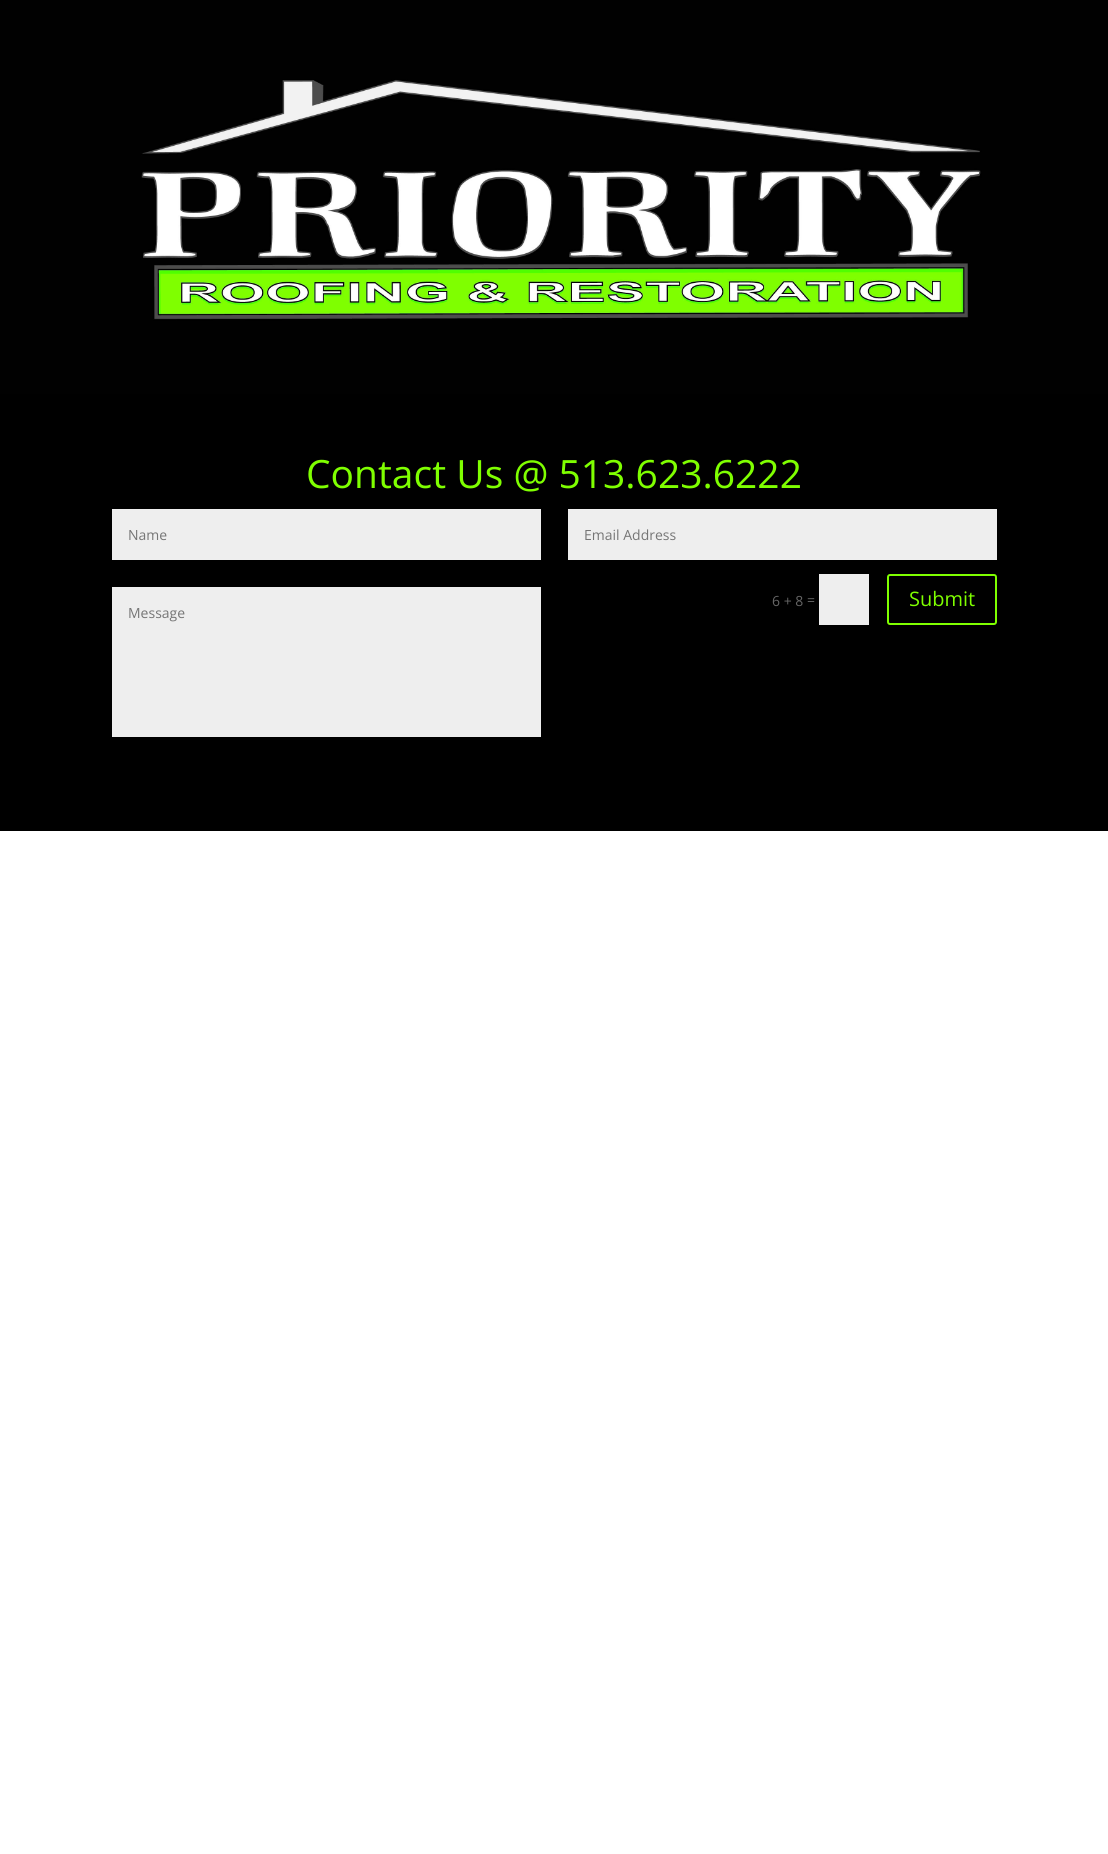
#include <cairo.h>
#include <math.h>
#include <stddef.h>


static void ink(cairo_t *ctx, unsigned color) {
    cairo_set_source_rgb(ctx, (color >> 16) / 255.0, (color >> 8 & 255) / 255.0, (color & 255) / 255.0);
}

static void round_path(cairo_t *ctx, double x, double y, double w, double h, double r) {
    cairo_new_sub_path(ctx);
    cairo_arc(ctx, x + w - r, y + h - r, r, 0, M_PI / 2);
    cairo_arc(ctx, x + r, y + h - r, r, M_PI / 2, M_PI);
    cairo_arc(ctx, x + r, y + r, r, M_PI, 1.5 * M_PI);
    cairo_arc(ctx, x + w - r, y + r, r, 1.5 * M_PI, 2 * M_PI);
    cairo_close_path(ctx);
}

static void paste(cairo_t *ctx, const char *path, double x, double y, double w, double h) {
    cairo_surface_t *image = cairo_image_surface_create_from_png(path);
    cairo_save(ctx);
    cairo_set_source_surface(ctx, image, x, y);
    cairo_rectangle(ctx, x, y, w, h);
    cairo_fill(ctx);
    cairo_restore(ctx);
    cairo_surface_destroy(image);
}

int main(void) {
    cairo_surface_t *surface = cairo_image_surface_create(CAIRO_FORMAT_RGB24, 1108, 1854);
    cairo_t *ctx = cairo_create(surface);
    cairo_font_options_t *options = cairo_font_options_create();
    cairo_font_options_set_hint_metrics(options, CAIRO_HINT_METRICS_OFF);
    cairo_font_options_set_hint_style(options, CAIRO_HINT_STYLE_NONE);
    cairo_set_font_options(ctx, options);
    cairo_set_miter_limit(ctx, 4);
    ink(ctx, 0xFFFFFF);
    cairo_paint(ctx);
    paste(ctx, "media/1.png", 0, 0, 1108, 394);
    ink(ctx, 0x000000);
    cairo_rectangle(ctx, 0, 394, 1108, 437);
    cairo_fill(ctx);
    cairo_select_font_face(ctx, "Open Sans", CAIRO_FONT_SLANT_NORMAL, CAIRO_FONT_WEIGHT_NORMAL);
    cairo_set_font_size(ctx, 39);
    ink(ctx, 0x7FFF00);
    cairo_move_to(ctx, 306, 488);
    cairo_show_text(ctx, "Contact Us @ 513.623.6222");
    ink(ctx, 0xEEEEEE);
    cairo_rectangle(ctx, 112, 509, 429, 51);
    cairo_fill(ctx);
    cairo_set_font_size(ctx, 14);
    ink(ctx, 0x757575);
    cairo_move_to(ctx, 128, 540);
    cairo_show_text(ctx, "Name");
    ink(ctx, 0xEEEEEE);
    cairo_rectangle(ctx, 568, 509, 429, 51);
    cairo_fill(ctx);
    ink(ctx, 0x757575);
    cairo_move_to(ctx, 584, 540);
    cairo_show_text(ctx, "Email Address");
    ink(ctx, 0x666666);
    cairo_move_to(ctx, 772, 606);
    cairo_show_text(ctx, "6 + 8");
    cairo_move_to(ctx, 807, 605);
    cairo_show_text(ctx, "=");
    ink(ctx, 0xEEEEEE);
    cairo_rectangle(ctx, 819, 574, 50, 51);
    cairo_fill(ctx);
    round_path(ctx, 888, 575, 108, 49, 2);
    ink(ctx, 0x7FFF00);
    cairo_stroke(ctx);
    cairo_set_font_size(ctx, 20);
    cairo_move_to(ctx, 909, 606);
    cairo_show_text(ctx, "Submit");
    ink(ctx, 0xEEEEEE);
    cairo_rectangle(ctx, 112, 587, 429, 150);
    cairo_fill(ctx);
    cairo_set_font_size(ctx, 14);
    ink(ctx, 0x757575);
    cairo_move_to(ctx, 128, 618);
    cairo_show_text(ctx, "Message");
    cairo_surface_write_to_png(surface, "image.png");
    cairo_font_options_destroy(options);
    cairo_destroy(ctx);
    cairo_surface_destroy(surface);
    return 0;
}
